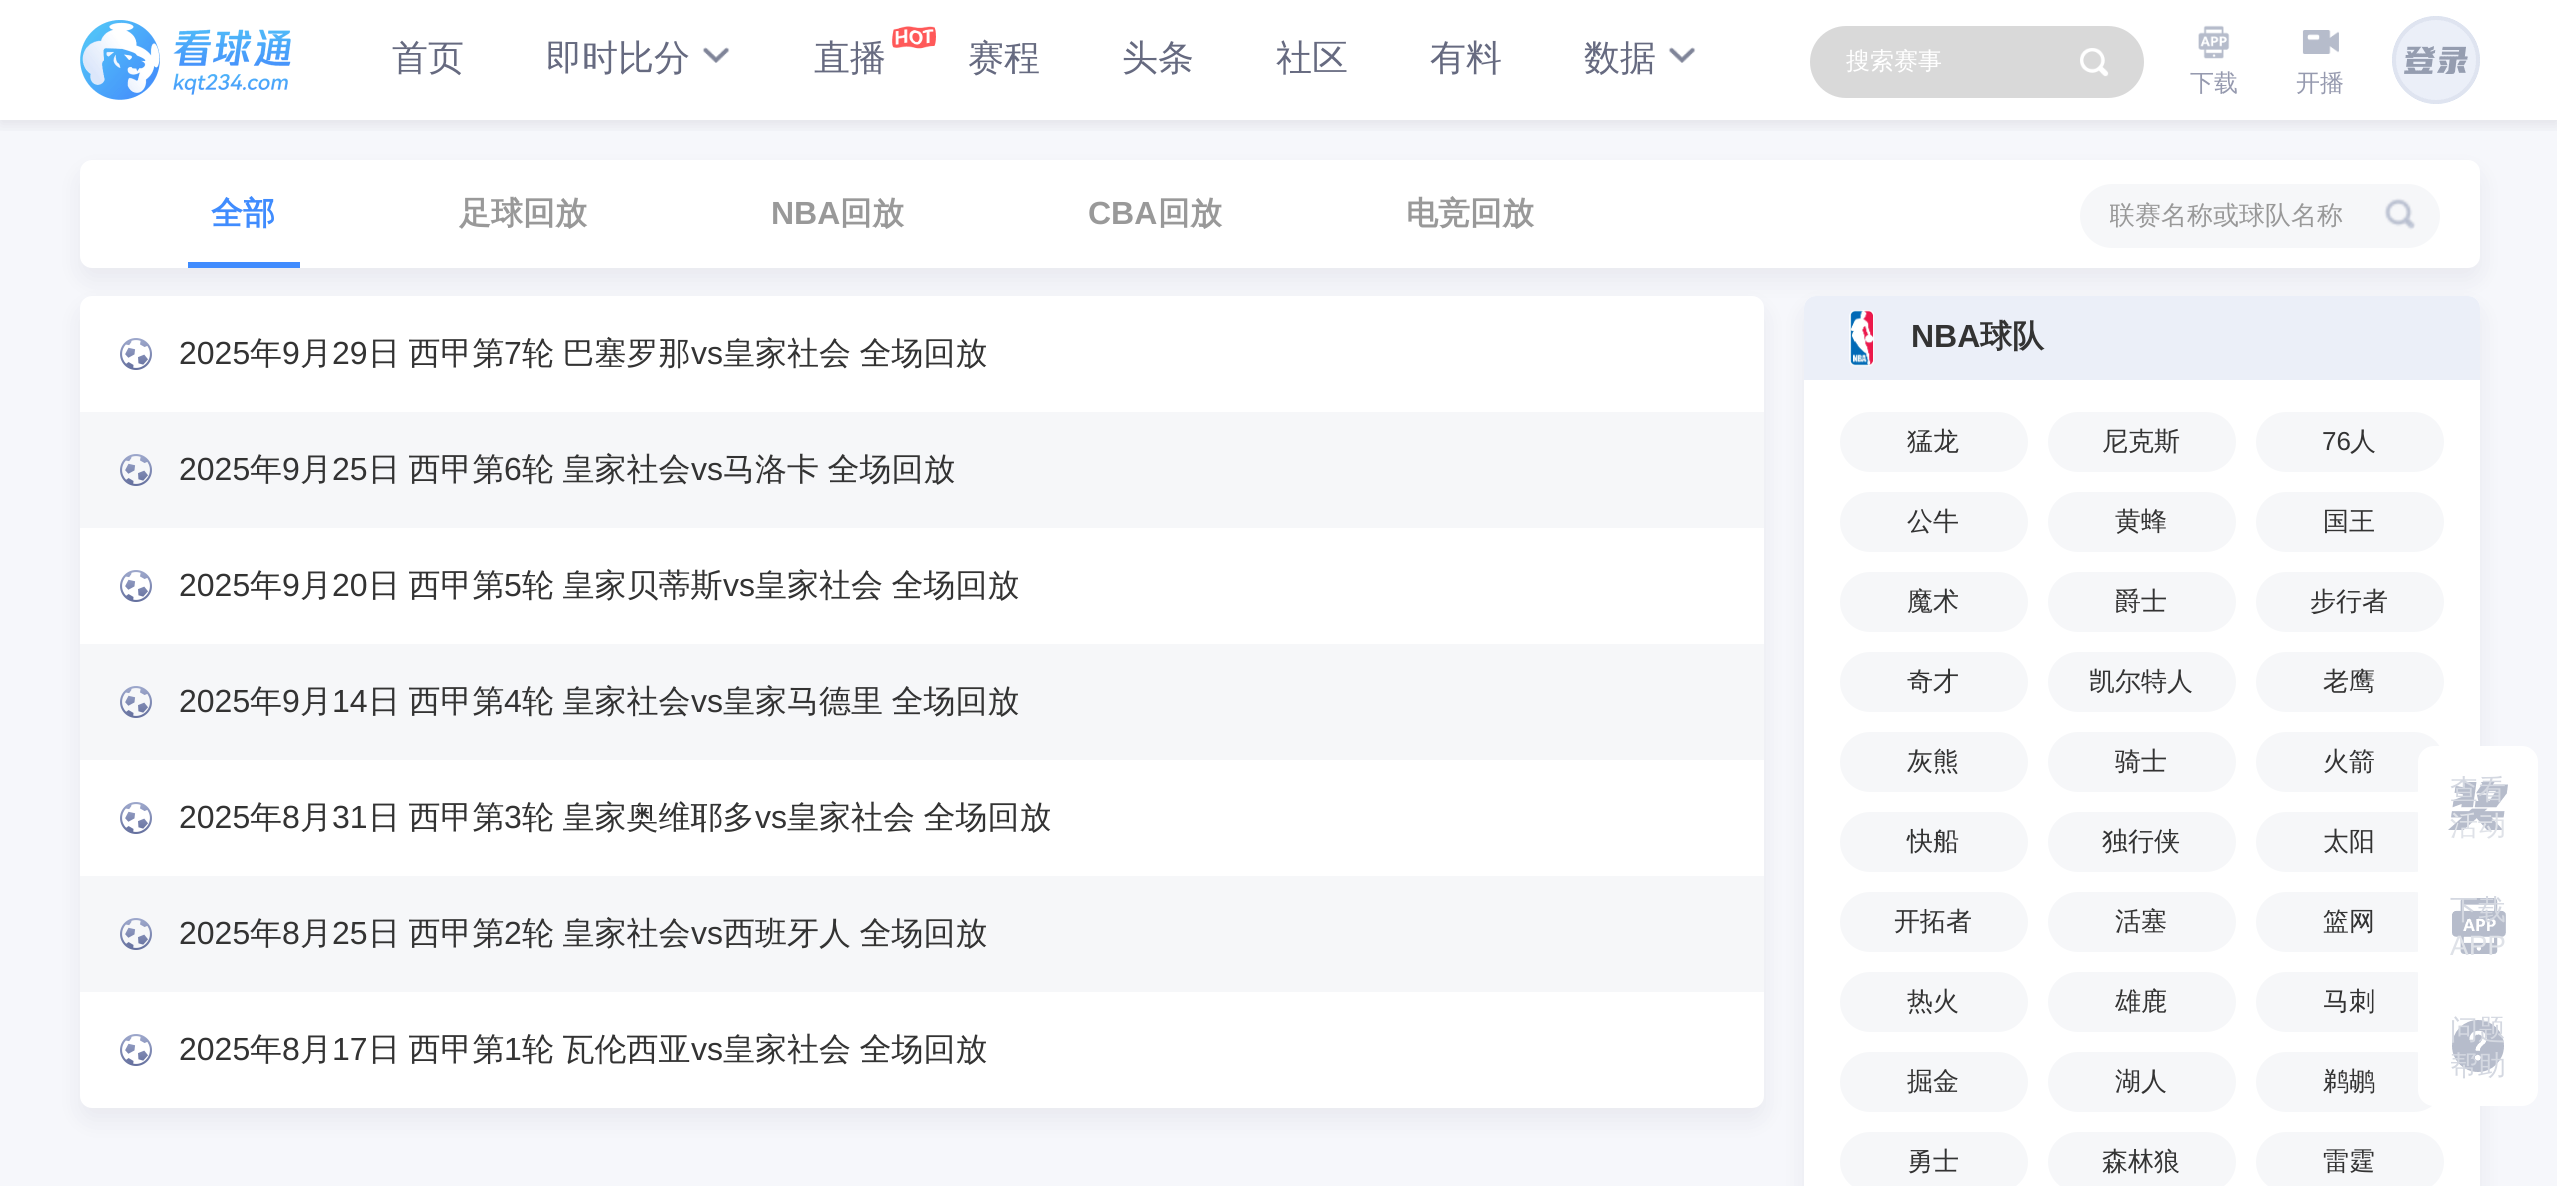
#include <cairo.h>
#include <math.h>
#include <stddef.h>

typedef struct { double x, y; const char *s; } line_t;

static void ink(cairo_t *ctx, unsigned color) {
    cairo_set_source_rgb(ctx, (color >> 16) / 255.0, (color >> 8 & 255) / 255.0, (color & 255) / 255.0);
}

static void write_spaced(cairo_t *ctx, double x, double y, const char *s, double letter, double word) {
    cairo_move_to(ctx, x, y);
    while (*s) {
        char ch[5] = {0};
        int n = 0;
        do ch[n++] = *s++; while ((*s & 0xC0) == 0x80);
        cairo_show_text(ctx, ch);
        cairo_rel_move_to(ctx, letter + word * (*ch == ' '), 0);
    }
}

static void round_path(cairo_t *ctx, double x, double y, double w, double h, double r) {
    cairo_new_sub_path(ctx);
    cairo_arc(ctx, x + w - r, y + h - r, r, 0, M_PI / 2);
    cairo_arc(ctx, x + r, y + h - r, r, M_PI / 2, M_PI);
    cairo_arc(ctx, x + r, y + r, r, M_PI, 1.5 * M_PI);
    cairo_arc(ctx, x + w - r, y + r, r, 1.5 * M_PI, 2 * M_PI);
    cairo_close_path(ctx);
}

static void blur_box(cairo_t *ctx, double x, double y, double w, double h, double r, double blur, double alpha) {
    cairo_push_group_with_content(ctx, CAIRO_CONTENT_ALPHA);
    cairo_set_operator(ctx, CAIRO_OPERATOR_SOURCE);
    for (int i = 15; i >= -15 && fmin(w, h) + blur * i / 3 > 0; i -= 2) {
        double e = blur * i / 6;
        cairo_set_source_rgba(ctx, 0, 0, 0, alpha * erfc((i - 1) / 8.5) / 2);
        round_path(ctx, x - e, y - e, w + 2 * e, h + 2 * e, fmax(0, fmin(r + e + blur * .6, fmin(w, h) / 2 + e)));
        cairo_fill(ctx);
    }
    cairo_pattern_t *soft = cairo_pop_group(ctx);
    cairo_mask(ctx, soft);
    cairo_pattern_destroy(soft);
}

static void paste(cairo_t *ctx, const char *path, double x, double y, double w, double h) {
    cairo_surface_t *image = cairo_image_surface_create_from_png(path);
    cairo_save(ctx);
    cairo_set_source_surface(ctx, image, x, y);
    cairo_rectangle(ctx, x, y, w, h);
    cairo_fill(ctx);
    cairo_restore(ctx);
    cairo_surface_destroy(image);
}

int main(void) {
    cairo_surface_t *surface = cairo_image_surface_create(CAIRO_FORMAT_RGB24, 2557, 1186);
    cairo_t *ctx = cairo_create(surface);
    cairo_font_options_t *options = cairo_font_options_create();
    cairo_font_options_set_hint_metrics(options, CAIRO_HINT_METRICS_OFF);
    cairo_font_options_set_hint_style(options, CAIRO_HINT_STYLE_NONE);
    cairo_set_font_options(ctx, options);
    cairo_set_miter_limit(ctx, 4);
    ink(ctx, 0xFFFFFF);
    cairo_paint(ctx);
    ink(ctx, 0xF6F7FB);
    cairo_rectangle(ctx, 0, 120, 2557, 1066);
    cairo_fill(ctx);
    cairo_save(ctx);
    cairo_rectangle(ctx, 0, 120, 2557, 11);
    cairo_clip(ctx);
    ink(ctx, 0x14162C);
    blur_box(ctx, 0, 4, 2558, 120, 0, 8, 0.1);
    cairo_restore(ctx);
    paste(ctx, "media/1.png", 80, 20, 211, 80);
    cairo_select_font_face(ctx, "WenQuanYi Zen Hei Medium", CAIRO_FONT_SLANT_NORMAL, CAIRO_FONT_WEIGHT_NORMAL);
    cairo_set_font_size(ctx, 36);
    ink(ctx, 0x666A80);
    cairo_move_to(ctx, 392, 70);
    cairo_show_text(ctx, "首页");
    cairo_move_to(ctx, 546, 70);
    cairo_show_text(ctx, "即时比分");
    paste(ctx, "media/2.png", 702, 47, 28, 16);
    paste(ctx, "media/3.png", 892, 26, 44, 23);
    {
        static const line_t items[] = {
            {814, 70, "直播"},
            {968, 70, "赛程"},
            {1122, 70, "头条"},
            {1276, 70, "社区"},
            {1430, 70, "有料"},
            {1584, 70, "数据"},
        };
        for (size_t i = 0; i < sizeof items / sizeof *items; i++) {
            cairo_move_to(ctx, items[i].x, items[i].y);
            cairo_show_text(ctx, items[i].s);
        }
    }
    paste(ctx, "media/4.png", 1668, 47, 28, 16);
    ink(ctx, 0xD9D9D9);
    round_path(ctx, 1810, 26, 334, 72, 36);
    cairo_fill(ctx);
    cairo_set_font_size(ctx, 24);
    ink(ctx, 0xFFFFFF);
    cairo_move_to(ctx, 1846, 69);
    cairo_show_text(ctx, "搜索赛事");
    paste(ctx, "media/5.png", 2080, 48, 29, 29);
    paste(ctx, "media/6.png", 2392, 16, 88, 88);
    paste(ctx, "media/7.png", 2198, 25, 32, 34);
    ink(ctx, 0x969AAF);
    cairo_move_to(ctx, 2190, 91);
    cairo_show_text(ctx, "下载");
    paste(ctx, "media/8.png", 2302, 30, 37, 24);
    cairo_move_to(ctx, 2296, 91);
    cairo_show_text(ctx, "开播");
    ink(ctx, 0x454A63);
    blur_box(ctx, 1804, 308, 676, 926, 12, 12, 0.08);
    blur_box(ctx, 80, 172, 2400, 108, 12, 12, 0.08);
    ink(ctx, 0xFFFFFF);
    round_path(ctx, 1804, 296, 676, 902, 12);
    cairo_fill(ctx);
    ink(ctx, 0xF6F7F9);
    round_path(ctx, 2256, 732, 188, 60, 30);
    cairo_fill(ctx);
    round_path(ctx, 2256, 812, 188, 60, 30);
    cairo_fill(ctx);
    round_path(ctx, 2256, 892, 188, 60, 30);
    cairo_fill(ctx);
    round_path(ctx, 2256, 972, 188, 60, 30);
    cairo_fill(ctx);
    round_path(ctx, 2256, 1052, 188, 60, 30);
    cairo_fill(ctx);
    ink(ctx, 0xFFFFFF);
    round_path(ctx, 2418, 746, 120, 360, 16);
    cairo_fill(ctx);
    paste(ctx, "media/9.png", 2448, 782, 60, 48);
    cairo_set_font_size(ctx, 28);
    ink(ctx, 0xD4D8E1);
    cairo_move_to(ctx, 2450, 799);
    cairo_show_text(ctx, "查看");
    ink(ctx, 0xDFE2E8);
    cairo_move_to(ctx, 2450, 835);
    cairo_show_text(ctx, "活动");
    paste(ctx, "media/10.png", 2452, 898, 54, 56);
    ink(ctx, 0xD4D8E1);
    cairo_move_to(ctx, 2450, 919);
    cairo_show_text(ctx, "下载");
    cairo_select_font_face(ctx, "Liberation Sans", CAIRO_FONT_SLANT_NORMAL, CAIRO_FONT_WEIGHT_NORMAL);
    ink(ctx, 0xDFE2E8);
    cairo_move_to(ctx, 2450, 955);
    cairo_show_text(ctx, "APP");
    paste(ctx, "media/11.png", 2452, 1020, 52, 52);
    cairo_select_font_face(ctx, "WenQuanYi Zen Hei Medium", CAIRO_FONT_SLANT_NORMAL, CAIRO_FONT_WEIGHT_NORMAL);
    ink(ctx, 0xD4D8E1);
    cairo_move_to(ctx, 2450, 1039);
    cairo_show_text(ctx, "问题");
    cairo_move_to(ctx, 2450, 1075);
    cairo_show_text(ctx, "帮助");
    ink(ctx, 0xFFFFFF);
    round_path(ctx, 80, 160, 2400, 108, 12);
    cairo_fill(ctx);
    ink(ctx, 0x408CFE);
    cairo_rectangle(ctx, 188, 262, 112, 6);
    cairo_fill(ctx);
    cairo_select_font_face(ctx, "WenQuanYi Zen Hei", CAIRO_FONT_SLANT_NORMAL, CAIRO_FONT_WEIGHT_BOLD);
    cairo_set_font_size(ctx, 32);
    cairo_move_to(ctx, 211, 224);
    cairo_show_text(ctx, "全部");
    ink(ctx, 0x999999);
    cairo_move_to(ctx, 459, 224);
    cairo_show_text(ctx, "足球回放");
    cairo_select_font_face(ctx, "Liberation Sans", CAIRO_FONT_SLANT_NORMAL, CAIRO_FONT_WEIGHT_BOLD);
    cairo_move_to(ctx, 771, 224);
    cairo_show_text(ctx, "NBA");
    cairo_select_font_face(ctx, "WenQuanYi Zen Hei", CAIRO_FONT_SLANT_NORMAL, CAIRO_FONT_WEIGHT_BOLD);
    cairo_move_to(ctx, 840, 224);
    cairo_show_text(ctx, "回放");
    cairo_select_font_face(ctx, "Liberation Sans", CAIRO_FONT_SLANT_NORMAL, CAIRO_FONT_WEIGHT_BOLD);
    cairo_move_to(ctx, 1088, 224);
    cairo_show_text(ctx, "CBA");
    cairo_select_font_face(ctx, "WenQuanYi Zen Hei", CAIRO_FONT_SLANT_NORMAL, CAIRO_FONT_WEIGHT_BOLD);
    cairo_move_to(ctx, 1158, 224);
    cairo_show_text(ctx, "回放");
    cairo_move_to(ctx, 1406, 224);
    cairo_show_text(ctx, "电竞回放");
    ink(ctx, 0xF6F7F9);
    cairo_new_path(ctx);
    cairo_move_to(ctx, 2112, 184);
    cairo_line_to(ctx, 2380, 184);
    cairo_line_to(ctx, 2380, 248);
    cairo_line_to(ctx, 2112, 248);
    cairo_curve_to(ctx, 2094.5, 248, 2080, 233.5, 2080, 216);
    cairo_curve_to(ctx, 2080, 198.5, 2094.5, 184, 2112, 184);
    cairo_close_path(ctx);
    cairo_fill(ctx);
    cairo_save(ctx);
    cairo_rectangle(ctx, 2110, 198, 240, 36);
    cairo_clip(ctx);
    cairo_select_font_face(ctx, "WenQuanYi Zen Hei Medium", CAIRO_FONT_SLANT_NORMAL, CAIRO_FONT_WEIGHT_NORMAL);
    cairo_set_font_size(ctx, 26);
    ink(ctx, 0x999999);
    cairo_move_to(ctx, 2109, 224);
    cairo_show_text(ctx, "联赛名称或球队名称");
    cairo_restore(ctx);
    cairo_new_path(ctx);
    cairo_move_to(ctx, 2380, 184);
    cairo_line_to(ctx, 2408, 184);
    cairo_curve_to(ctx, 2425.5, 184, 2440, 198.5, 2440, 216);
    cairo_curve_to(ctx, 2440, 233.5, 2425.5, 248, 2408, 248);
    cairo_line_to(ctx, 2380, 248);
    cairo_close_path(ctx);
    cairo_fill(ctx);
    paste(ctx, "media/12.png", 2384, 198, 32, 32);
    ink(ctx, 0x454A63);
    blur_box(ctx, 80, 308, 1684, 812, 12, 12, 0.08);
    ink(ctx, 0xFFFFFF);
    round_path(ctx, 80, 296, 1684, 812, 12);
    cairo_fill(ctx);
    paste(ctx, "media/13.png", 120, 338, 32, 32);
    cairo_select_font_face(ctx, "Liberation Sans", CAIRO_FONT_SLANT_NORMAL, CAIRO_FONT_WEIGHT_NORMAL);
    ink(ctx, 0x333333);
    cairo_move_to(ctx, 179, 364);
    cairo_show_text(ctx, "2025");
    cairo_select_font_face(ctx, "WenQuanYi Zen Hei Medium", CAIRO_FONT_SLANT_NORMAL, CAIRO_FONT_WEIGHT_NORMAL);
    cairo_move_to(ctx, 250, 364);
    cairo_show_text(ctx, "年");
    cairo_select_font_face(ctx, "Liberation Sans", CAIRO_FONT_SLANT_NORMAL, CAIRO_FONT_WEIGHT_NORMAL);
    cairo_move_to(ctx, 282, 364);
    cairo_show_text(ctx, "9");
    cairo_select_font_face(ctx, "WenQuanYi Zen Hei Medium", CAIRO_FONT_SLANT_NORMAL, CAIRO_FONT_WEIGHT_NORMAL);
    cairo_move_to(ctx, 300, 364);
    cairo_show_text(ctx, "月");
    cairo_select_font_face(ctx, "Liberation Sans", CAIRO_FONT_SLANT_NORMAL, CAIRO_FONT_WEIGHT_NORMAL);
    cairo_move_to(ctx, 332, 364);
    cairo_show_text(ctx, "29");
    cairo_select_font_face(ctx, "WenQuanYi Zen Hei Medium", CAIRO_FONT_SLANT_NORMAL, CAIRO_FONT_WEIGHT_NORMAL);
    write_spaced(ctx, 368, 364, "日 西甲第", 0, -1);
    cairo_select_font_face(ctx, "Liberation Sans", CAIRO_FONT_SLANT_NORMAL, CAIRO_FONT_WEIGHT_NORMAL);
    cairo_move_to(ctx, 504, 364);
    cairo_show_text(ctx, "7");
    cairo_select_font_face(ctx, "WenQuanYi Zen Hei Medium", CAIRO_FONT_SLANT_NORMAL, CAIRO_FONT_WEIGHT_NORMAL);
    write_spaced(ctx, 522, 364, "轮 巴塞罗那", 0, -1);
    cairo_select_font_face(ctx, "Liberation Sans", CAIRO_FONT_SLANT_NORMAL, CAIRO_FONT_WEIGHT_NORMAL);
    cairo_move_to(ctx, 691, 364);
    cairo_show_text(ctx, "vs");
    cairo_select_font_face(ctx, "WenQuanYi Zen Hei Medium", CAIRO_FONT_SLANT_NORMAL, CAIRO_FONT_WEIGHT_NORMAL);
    write_spaced(ctx, 723, 364, "皇家社会 全场回放", 0, -1);
    ink(ctx, 0xF6F7F9);
    cairo_rectangle(ctx, 80, 412, 1684, 116);
    cairo_fill(ctx);
    paste(ctx, "media/14.png", 120, 454, 32, 32);
    cairo_select_font_face(ctx, "Liberation Sans", CAIRO_FONT_SLANT_NORMAL, CAIRO_FONT_WEIGHT_NORMAL);
    ink(ctx, 0x333333);
    cairo_move_to(ctx, 179, 480);
    cairo_show_text(ctx, "2025");
    cairo_select_font_face(ctx, "WenQuanYi Zen Hei Medium", CAIRO_FONT_SLANT_NORMAL, CAIRO_FONT_WEIGHT_NORMAL);
    cairo_move_to(ctx, 250, 480);
    cairo_show_text(ctx, "年");
    cairo_select_font_face(ctx, "Liberation Sans", CAIRO_FONT_SLANT_NORMAL, CAIRO_FONT_WEIGHT_NORMAL);
    cairo_move_to(ctx, 282, 480);
    cairo_show_text(ctx, "9");
    cairo_select_font_face(ctx, "WenQuanYi Zen Hei Medium", CAIRO_FONT_SLANT_NORMAL, CAIRO_FONT_WEIGHT_NORMAL);
    cairo_move_to(ctx, 300, 480);
    cairo_show_text(ctx, "月");
    cairo_select_font_face(ctx, "Liberation Sans", CAIRO_FONT_SLANT_NORMAL, CAIRO_FONT_WEIGHT_NORMAL);
    cairo_move_to(ctx, 332, 480);
    cairo_show_text(ctx, "25");
    cairo_select_font_face(ctx, "WenQuanYi Zen Hei Medium", CAIRO_FONT_SLANT_NORMAL, CAIRO_FONT_WEIGHT_NORMAL);
    write_spaced(ctx, 368, 480, "日 西甲第", 0, -1);
    cairo_select_font_face(ctx, "Liberation Sans", CAIRO_FONT_SLANT_NORMAL, CAIRO_FONT_WEIGHT_NORMAL);
    cairo_move_to(ctx, 504, 480);
    cairo_show_text(ctx, "6");
    cairo_select_font_face(ctx, "WenQuanYi Zen Hei Medium", CAIRO_FONT_SLANT_NORMAL, CAIRO_FONT_WEIGHT_NORMAL);
    write_spaced(ctx, 522, 480, "轮 皇家社会", 0, -1);
    cairo_select_font_face(ctx, "Liberation Sans", CAIRO_FONT_SLANT_NORMAL, CAIRO_FONT_WEIGHT_NORMAL);
    cairo_move_to(ctx, 691, 480);
    cairo_show_text(ctx, "vs");
    cairo_select_font_face(ctx, "WenQuanYi Zen Hei Medium", CAIRO_FONT_SLANT_NORMAL, CAIRO_FONT_WEIGHT_NORMAL);
    write_spaced(ctx, 723, 480, "马洛卡 全场回放", 0, -1);
    paste(ctx, "media/13.png", 120, 570, 32, 32);
    cairo_select_font_face(ctx, "Liberation Sans", CAIRO_FONT_SLANT_NORMAL, CAIRO_FONT_WEIGHT_NORMAL);
    cairo_move_to(ctx, 179, 596);
    cairo_show_text(ctx, "2025");
    cairo_select_font_face(ctx, "WenQuanYi Zen Hei Medium", CAIRO_FONT_SLANT_NORMAL, CAIRO_FONT_WEIGHT_NORMAL);
    cairo_move_to(ctx, 250, 596);
    cairo_show_text(ctx, "年");
    cairo_select_font_face(ctx, "Liberation Sans", CAIRO_FONT_SLANT_NORMAL, CAIRO_FONT_WEIGHT_NORMAL);
    cairo_move_to(ctx, 282, 596);
    cairo_show_text(ctx, "9");
    cairo_select_font_face(ctx, "WenQuanYi Zen Hei Medium", CAIRO_FONT_SLANT_NORMAL, CAIRO_FONT_WEIGHT_NORMAL);
    cairo_move_to(ctx, 300, 596);
    cairo_show_text(ctx, "月");
    cairo_select_font_face(ctx, "Liberation Sans", CAIRO_FONT_SLANT_NORMAL, CAIRO_FONT_WEIGHT_NORMAL);
    cairo_move_to(ctx, 332, 596);
    cairo_show_text(ctx, "20");
    cairo_select_font_face(ctx, "WenQuanYi Zen Hei Medium", CAIRO_FONT_SLANT_NORMAL, CAIRO_FONT_WEIGHT_NORMAL);
    write_spaced(ctx, 368, 596, "日 西甲第", 0, -1);
    cairo_select_font_face(ctx, "Liberation Sans", CAIRO_FONT_SLANT_NORMAL, CAIRO_FONT_WEIGHT_NORMAL);
    cairo_move_to(ctx, 504, 596);
    cairo_show_text(ctx, "5");
    cairo_select_font_face(ctx, "WenQuanYi Zen Hei Medium", CAIRO_FONT_SLANT_NORMAL, CAIRO_FONT_WEIGHT_NORMAL);
    write_spaced(ctx, 522, 596, "轮 皇家贝蒂斯", 0, -1);
    cairo_select_font_face(ctx, "Liberation Sans", CAIRO_FONT_SLANT_NORMAL, CAIRO_FONT_WEIGHT_NORMAL);
    cairo_move_to(ctx, 723, 596);
    cairo_show_text(ctx, "vs");
    cairo_select_font_face(ctx, "WenQuanYi Zen Hei Medium", CAIRO_FONT_SLANT_NORMAL, CAIRO_FONT_WEIGHT_NORMAL);
    write_spaced(ctx, 755, 596, "皇家社会 全场回放", 0, -1);
    ink(ctx, 0xF6F7F9);
    cairo_rectangle(ctx, 80, 644, 1684, 116);
    cairo_fill(ctx);
    paste(ctx, "media/14.png", 120, 686, 32, 32);
    cairo_select_font_face(ctx, "Liberation Sans", CAIRO_FONT_SLANT_NORMAL, CAIRO_FONT_WEIGHT_NORMAL);
    ink(ctx, 0x333333);
    cairo_move_to(ctx, 179, 712);
    cairo_show_text(ctx, "2025");
    cairo_select_font_face(ctx, "WenQuanYi Zen Hei Medium", CAIRO_FONT_SLANT_NORMAL, CAIRO_FONT_WEIGHT_NORMAL);
    cairo_move_to(ctx, 250, 712);
    cairo_show_text(ctx, "年");
    cairo_select_font_face(ctx, "Liberation Sans", CAIRO_FONT_SLANT_NORMAL, CAIRO_FONT_WEIGHT_NORMAL);
    cairo_move_to(ctx, 282, 712);
    cairo_show_text(ctx, "9");
    cairo_select_font_face(ctx, "WenQuanYi Zen Hei Medium", CAIRO_FONT_SLANT_NORMAL, CAIRO_FONT_WEIGHT_NORMAL);
    cairo_move_to(ctx, 300, 712);
    cairo_show_text(ctx, "月");
    cairo_select_font_face(ctx, "Liberation Sans", CAIRO_FONT_SLANT_NORMAL, CAIRO_FONT_WEIGHT_NORMAL);
    cairo_move_to(ctx, 332, 712);
    cairo_show_text(ctx, "14");
    cairo_select_font_face(ctx, "WenQuanYi Zen Hei Medium", CAIRO_FONT_SLANT_NORMAL, CAIRO_FONT_WEIGHT_NORMAL);
    write_spaced(ctx, 368, 712, "日 西甲第", 0, -1);
    cairo_select_font_face(ctx, "Liberation Sans", CAIRO_FONT_SLANT_NORMAL, CAIRO_FONT_WEIGHT_NORMAL);
    cairo_move_to(ctx, 504, 712);
    cairo_show_text(ctx, "4");
    cairo_select_font_face(ctx, "WenQuanYi Zen Hei Medium", CAIRO_FONT_SLANT_NORMAL, CAIRO_FONT_WEIGHT_NORMAL);
    write_spaced(ctx, 522, 712, "轮 皇家社会", 0, -1);
    cairo_select_font_face(ctx, "Liberation Sans", CAIRO_FONT_SLANT_NORMAL, CAIRO_FONT_WEIGHT_NORMAL);
    cairo_move_to(ctx, 691, 712);
    cairo_show_text(ctx, "vs");
    cairo_select_font_face(ctx, "WenQuanYi Zen Hei Medium", CAIRO_FONT_SLANT_NORMAL, CAIRO_FONT_WEIGHT_NORMAL);
    write_spaced(ctx, 723, 712, "皇家马德里 全场回放", 0, -1);
    paste(ctx, "media/13.png", 120, 802, 32, 32);
    cairo_select_font_face(ctx, "Liberation Sans", CAIRO_FONT_SLANT_NORMAL, CAIRO_FONT_WEIGHT_NORMAL);
    cairo_move_to(ctx, 179, 828);
    cairo_show_text(ctx, "2025");
    cairo_select_font_face(ctx, "WenQuanYi Zen Hei Medium", CAIRO_FONT_SLANT_NORMAL, CAIRO_FONT_WEIGHT_NORMAL);
    cairo_move_to(ctx, 250, 828);
    cairo_show_text(ctx, "年");
    cairo_select_font_face(ctx, "Liberation Sans", CAIRO_FONT_SLANT_NORMAL, CAIRO_FONT_WEIGHT_NORMAL);
    cairo_move_to(ctx, 282, 828);
    cairo_show_text(ctx, "8");
    cairo_select_font_face(ctx, "WenQuanYi Zen Hei Medium", CAIRO_FONT_SLANT_NORMAL, CAIRO_FONT_WEIGHT_NORMAL);
    cairo_move_to(ctx, 300, 828);
    cairo_show_text(ctx, "月");
    cairo_select_font_face(ctx, "Liberation Sans", CAIRO_FONT_SLANT_NORMAL, CAIRO_FONT_WEIGHT_NORMAL);
    cairo_move_to(ctx, 332, 828);
    cairo_show_text(ctx, "31");
    cairo_select_font_face(ctx, "WenQuanYi Zen Hei Medium", CAIRO_FONT_SLANT_NORMAL, CAIRO_FONT_WEIGHT_NORMAL);
    write_spaced(ctx, 368, 828, "日 西甲第", 0, -1);
    cairo_select_font_face(ctx, "Liberation Sans", CAIRO_FONT_SLANT_NORMAL, CAIRO_FONT_WEIGHT_NORMAL);
    cairo_move_to(ctx, 504, 828);
    cairo_show_text(ctx, "3");
    cairo_select_font_face(ctx, "WenQuanYi Zen Hei Medium", CAIRO_FONT_SLANT_NORMAL, CAIRO_FONT_WEIGHT_NORMAL);
    write_spaced(ctx, 522, 828, "轮 皇家奥维耶多", 0, -1);
    cairo_select_font_face(ctx, "Liberation Sans", CAIRO_FONT_SLANT_NORMAL, CAIRO_FONT_WEIGHT_NORMAL);
    cairo_move_to(ctx, 755, 828);
    cairo_show_text(ctx, "vs");
    cairo_select_font_face(ctx, "WenQuanYi Zen Hei Medium", CAIRO_FONT_SLANT_NORMAL, CAIRO_FONT_WEIGHT_NORMAL);
    write_spaced(ctx, 787, 828, "皇家社会 全场回放", 0, -1);
    ink(ctx, 0xF6F7F9);
    cairo_rectangle(ctx, 80, 876, 1684, 116);
    cairo_fill(ctx);
    paste(ctx, "media/14.png", 120, 918, 32, 32);
    cairo_select_font_face(ctx, "Liberation Sans", CAIRO_FONT_SLANT_NORMAL, CAIRO_FONT_WEIGHT_NORMAL);
    ink(ctx, 0x333333);
    cairo_move_to(ctx, 179, 944);
    cairo_show_text(ctx, "2025");
    cairo_select_font_face(ctx, "WenQuanYi Zen Hei Medium", CAIRO_FONT_SLANT_NORMAL, CAIRO_FONT_WEIGHT_NORMAL);
    cairo_move_to(ctx, 250, 944);
    cairo_show_text(ctx, "年");
    cairo_select_font_face(ctx, "Liberation Sans", CAIRO_FONT_SLANT_NORMAL, CAIRO_FONT_WEIGHT_NORMAL);
    cairo_move_to(ctx, 282, 944);
    cairo_show_text(ctx, "8");
    cairo_select_font_face(ctx, "WenQuanYi Zen Hei Medium", CAIRO_FONT_SLANT_NORMAL, CAIRO_FONT_WEIGHT_NORMAL);
    cairo_move_to(ctx, 300, 944);
    cairo_show_text(ctx, "月");
    cairo_select_font_face(ctx, "Liberation Sans", CAIRO_FONT_SLANT_NORMAL, CAIRO_FONT_WEIGHT_NORMAL);
    cairo_move_to(ctx, 332, 944);
    cairo_show_text(ctx, "25");
    cairo_select_font_face(ctx, "WenQuanYi Zen Hei Medium", CAIRO_FONT_SLANT_NORMAL, CAIRO_FONT_WEIGHT_NORMAL);
    write_spaced(ctx, 368, 944, "日 西甲第", 0, -1);
    cairo_select_font_face(ctx, "Liberation Sans", CAIRO_FONT_SLANT_NORMAL, CAIRO_FONT_WEIGHT_NORMAL);
    cairo_move_to(ctx, 504, 944);
    cairo_show_text(ctx, "2");
    cairo_select_font_face(ctx, "WenQuanYi Zen Hei Medium", CAIRO_FONT_SLANT_NORMAL, CAIRO_FONT_WEIGHT_NORMAL);
    write_spaced(ctx, 522, 944, "轮 皇家社会", 0, -1);
    cairo_select_font_face(ctx, "Liberation Sans", CAIRO_FONT_SLANT_NORMAL, CAIRO_FONT_WEIGHT_NORMAL);
    cairo_move_to(ctx, 691, 944);
    cairo_show_text(ctx, "vs");
    cairo_select_font_face(ctx, "WenQuanYi Zen Hei Medium", CAIRO_FONT_SLANT_NORMAL, CAIRO_FONT_WEIGHT_NORMAL);
    write_spaced(ctx, 723, 944, "西班牙人 全场回放", 0, -1);
    paste(ctx, "media/13.png", 120, 1034, 32, 32);
    cairo_select_font_face(ctx, "Liberation Sans", CAIRO_FONT_SLANT_NORMAL, CAIRO_FONT_WEIGHT_NORMAL);
    cairo_move_to(ctx, 179, 1060);
    cairo_show_text(ctx, "2025");
    cairo_select_font_face(ctx, "WenQuanYi Zen Hei Medium", CAIRO_FONT_SLANT_NORMAL, CAIRO_FONT_WEIGHT_NORMAL);
    cairo_move_to(ctx, 250, 1060);
    cairo_show_text(ctx, "年");
    cairo_select_font_face(ctx, "Liberation Sans", CAIRO_FONT_SLANT_NORMAL, CAIRO_FONT_WEIGHT_NORMAL);
    cairo_move_to(ctx, 282, 1060);
    cairo_show_text(ctx, "8");
    cairo_select_font_face(ctx, "WenQuanYi Zen Hei Medium", CAIRO_FONT_SLANT_NORMAL, CAIRO_FONT_WEIGHT_NORMAL);
    cairo_move_to(ctx, 300, 1060);
    cairo_show_text(ctx, "月");
    cairo_select_font_face(ctx, "Liberation Sans", CAIRO_FONT_SLANT_NORMAL, CAIRO_FONT_WEIGHT_NORMAL);
    cairo_move_to(ctx, 332, 1060);
    cairo_show_text(ctx, "17");
    cairo_select_font_face(ctx, "WenQuanYi Zen Hei Medium", CAIRO_FONT_SLANT_NORMAL, CAIRO_FONT_WEIGHT_NORMAL);
    write_spaced(ctx, 368, 1060, "日 西甲第", 0, -1);
    cairo_select_font_face(ctx, "Liberation Sans", CAIRO_FONT_SLANT_NORMAL, CAIRO_FONT_WEIGHT_NORMAL);
    cairo_move_to(ctx, 504, 1060);
    cairo_show_text(ctx, "1");
    cairo_select_font_face(ctx, "WenQuanYi Zen Hei Medium", CAIRO_FONT_SLANT_NORMAL, CAIRO_FONT_WEIGHT_NORMAL);
    write_spaced(ctx, 522, 1060, "轮 瓦伦西亚", 0, -1);
    cairo_select_font_face(ctx, "Liberation Sans", CAIRO_FONT_SLANT_NORMAL, CAIRO_FONT_WEIGHT_NORMAL);
    cairo_move_to(ctx, 691, 1060);
    cairo_show_text(ctx, "vs");
    cairo_select_font_face(ctx, "WenQuanYi Zen Hei Medium", CAIRO_FONT_SLANT_NORMAL, CAIRO_FONT_WEIGHT_NORMAL);
    write_spaced(ctx, 723, 1060, "皇家社会 全场回放", 0, -1);
    ink(ctx, 0xEBEFF8);
    cairo_new_path(ctx);
    cairo_move_to(ctx, 1816, 296);
    cairo_line_to(ctx, 2468, 296);
    cairo_curve_to(ctx, 2474.5, 296, 2480, 301.5, 2480, 308);
    cairo_line_to(ctx, 2480, 380);
    cairo_line_to(ctx, 1804, 380);
    cairo_line_to(ctx, 1804, 308);
    cairo_curve_to(ctx, 1804, 301.5, 1809.5, 296, 1816, 296);
    cairo_close_path(ctx);
    cairo_fill(ctx);
    paste(ctx, "media/15.png", 1849, 310, 25, 57);
    cairo_select_font_face(ctx, "Liberation Sans", CAIRO_FONT_SLANT_NORMAL, CAIRO_FONT_WEIGHT_BOLD);
    ink(ctx, 0x333333);
    cairo_move_to(ctx, 1911, 347);
    cairo_show_text(ctx, "NBA");
    cairo_select_font_face(ctx, "WenQuanYi Zen Hei", CAIRO_FONT_SLANT_NORMAL, CAIRO_FONT_WEIGHT_BOLD);
    cairo_move_to(ctx, 1980, 347);
    cairo_show_text(ctx, "球队");
    ink(ctx, 0xF6F7F9);
    round_path(ctx, 1840, 412, 188, 60, 30);
    cairo_fill(ctx);
    cairo_select_font_face(ctx, "WenQuanYi Zen Hei Medium", CAIRO_FONT_SLANT_NORMAL, CAIRO_FONT_WEIGHT_NORMAL);
    cairo_set_font_size(ctx, 26);
    ink(ctx, 0x333333);
    cairo_move_to(ctx, 1907, 450);
    cairo_show_text(ctx, "猛龙");
    ink(ctx, 0xF6F7F9);
    round_path(ctx, 2048, 412, 188, 60, 30);
    cairo_fill(ctx);
    ink(ctx, 0x333333);
    cairo_move_to(ctx, 2102, 450);
    cairo_show_text(ctx, "尼克斯");
    ink(ctx, 0xF6F7F9);
    round_path(ctx, 2256, 412, 188, 60, 30);
    cairo_fill(ctx);
    cairo_select_font_face(ctx, "Liberation Sans", CAIRO_FONT_SLANT_NORMAL, CAIRO_FONT_WEIGHT_NORMAL);
    ink(ctx, 0x333333);
    cairo_move_to(ctx, 2322, 450);
    cairo_show_text(ctx, "76");
    cairo_select_font_face(ctx, "WenQuanYi Zen Hei Medium", CAIRO_FONT_SLANT_NORMAL, CAIRO_FONT_WEIGHT_NORMAL);
    cairo_move_to(ctx, 2350, 450);
    cairo_show_text(ctx, "人");
    ink(ctx, 0xF6F7F9);
    round_path(ctx, 1840, 492, 188, 60, 30);
    cairo_fill(ctx);
    ink(ctx, 0x333333);
    cairo_move_to(ctx, 1907, 530);
    cairo_show_text(ctx, "公牛");
    ink(ctx, 0xF6F7F9);
    round_path(ctx, 2048, 492, 188, 60, 30);
    cairo_fill(ctx);
    ink(ctx, 0x333333);
    cairo_move_to(ctx, 2115, 530);
    cairo_show_text(ctx, "黄蜂");
    ink(ctx, 0xF6F7F9);
    round_path(ctx, 2256, 492, 188, 60, 30);
    cairo_fill(ctx);
    ink(ctx, 0x333333);
    cairo_move_to(ctx, 2323, 530);
    cairo_show_text(ctx, "国王");
    ink(ctx, 0xF6F7F9);
    round_path(ctx, 1840, 572, 188, 60, 30);
    cairo_fill(ctx);
    ink(ctx, 0x333333);
    cairo_move_to(ctx, 1907, 610);
    cairo_show_text(ctx, "魔术");
    ink(ctx, 0xF6F7F9);
    round_path(ctx, 2048, 572, 188, 60, 30);
    cairo_fill(ctx);
    ink(ctx, 0x333333);
    cairo_move_to(ctx, 2115, 610);
    cairo_show_text(ctx, "爵士");
    ink(ctx, 0xF6F7F9);
    round_path(ctx, 2256, 572, 188, 60, 30);
    cairo_fill(ctx);
    ink(ctx, 0x333333);
    cairo_move_to(ctx, 2310, 610);
    cairo_show_text(ctx, "步行者");
    ink(ctx, 0xF6F7F9);
    round_path(ctx, 1840, 652, 188, 60, 30);
    cairo_fill(ctx);
    ink(ctx, 0x333333);
    cairo_move_to(ctx, 1907, 690);
    cairo_show_text(ctx, "奇才");
    ink(ctx, 0xF6F7F9);
    round_path(ctx, 2048, 652, 188, 60, 30);
    cairo_fill(ctx);
    ink(ctx, 0x333333);
    cairo_move_to(ctx, 2089, 690);
    cairo_show_text(ctx, "凯尔特人");
    ink(ctx, 0xF6F7F9);
    round_path(ctx, 2256, 652, 188, 60, 30);
    cairo_fill(ctx);
    ink(ctx, 0x333333);
    cairo_move_to(ctx, 2323, 690);
    cairo_show_text(ctx, "老鹰");
    ink(ctx, 0xF6F7F9);
    round_path(ctx, 1840, 732, 188, 60, 30);
    cairo_fill(ctx);
    ink(ctx, 0x333333);
    cairo_move_to(ctx, 1907, 770);
    cairo_show_text(ctx, "灰熊");
    ink(ctx, 0xF6F7F9);
    round_path(ctx, 2048, 732, 188, 60, 30);
    cairo_fill(ctx);
    ink(ctx, 0x333333);
    cairo_move_to(ctx, 2115, 770);
    cairo_show_text(ctx, "骑士");
    cairo_move_to(ctx, 2323, 770);
    cairo_show_text(ctx, "火箭");
    ink(ctx, 0xF6F7F9);
    round_path(ctx, 1840, 812, 188, 60, 30);
    cairo_fill(ctx);
    ink(ctx, 0x333333);
    cairo_move_to(ctx, 1907, 850);
    cairo_show_text(ctx, "快船");
    ink(ctx, 0xF6F7F9);
    round_path(ctx, 2048, 812, 188, 60, 30);
    cairo_fill(ctx);
    ink(ctx, 0x333333);
    cairo_move_to(ctx, 2102, 850);
    cairo_show_text(ctx, "独行侠");
    cairo_move_to(ctx, 2323, 850);
    cairo_show_text(ctx, "太阳");
    ink(ctx, 0xF6F7F9);
    round_path(ctx, 1840, 892, 188, 60, 30);
    cairo_fill(ctx);
    ink(ctx, 0x333333);
    cairo_move_to(ctx, 1894, 930);
    cairo_show_text(ctx, "开拓者");
    ink(ctx, 0xF6F7F9);
    round_path(ctx, 2048, 892, 188, 60, 30);
    cairo_fill(ctx);
    ink(ctx, 0x333333);
    cairo_move_to(ctx, 2115, 930);
    cairo_show_text(ctx, "活塞");
    cairo_move_to(ctx, 2323, 930);
    cairo_show_text(ctx, "篮网");
    ink(ctx, 0xF6F7F9);
    round_path(ctx, 1840, 972, 188, 60, 30);
    cairo_fill(ctx);
    ink(ctx, 0x333333);
    cairo_move_to(ctx, 1907, 1010);
    cairo_show_text(ctx, "热火");
    ink(ctx, 0xF6F7F9);
    round_path(ctx, 2048, 972, 188, 60, 30);
    cairo_fill(ctx);
    ink(ctx, 0x333333);
    cairo_move_to(ctx, 2115, 1010);
    cairo_show_text(ctx, "雄鹿");
    cairo_move_to(ctx, 2323, 1010);
    cairo_show_text(ctx, "马刺");
    ink(ctx, 0xF6F7F9);
    round_path(ctx, 1840, 1052, 188, 60, 30);
    cairo_fill(ctx);
    ink(ctx, 0x333333);
    cairo_move_to(ctx, 1907, 1090);
    cairo_show_text(ctx, "掘金");
    ink(ctx, 0xF6F7F9);
    round_path(ctx, 2048, 1052, 188, 60, 30);
    cairo_fill(ctx);
    ink(ctx, 0x333333);
    cairo_move_to(ctx, 2115, 1090);
    cairo_show_text(ctx, "湖人");
    cairo_move_to(ctx, 2323, 1090);
    cairo_show_text(ctx, "鹈鹕");
    ink(ctx, 0xF6F7F9);
    round_path(ctx, 1840, 1132, 188, 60, 30);
    cairo_fill(ctx);
    ink(ctx, 0x333333);
    cairo_move_to(ctx, 1907, 1170);
    cairo_show_text(ctx, "勇士");
    ink(ctx, 0xF6F7F9);
    round_path(ctx, 2048, 1132, 188, 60, 30);
    cairo_fill(ctx);
    ink(ctx, 0x333333);
    cairo_move_to(ctx, 2102, 1170);
    cairo_show_text(ctx, "森林狼");
    ink(ctx, 0xF6F7F9);
    round_path(ctx, 2256, 1132, 188, 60, 30);
    cairo_fill(ctx);
    ink(ctx, 0x333333);
    cairo_move_to(ctx, 2323, 1170);
    cairo_show_text(ctx, "雷霆");
    cairo_surface_write_to_png(surface, "image.png");
    cairo_font_options_destroy(options);
    cairo_destroy(ctx);
    cairo_surface_destroy(surface);
    return 0;
}
